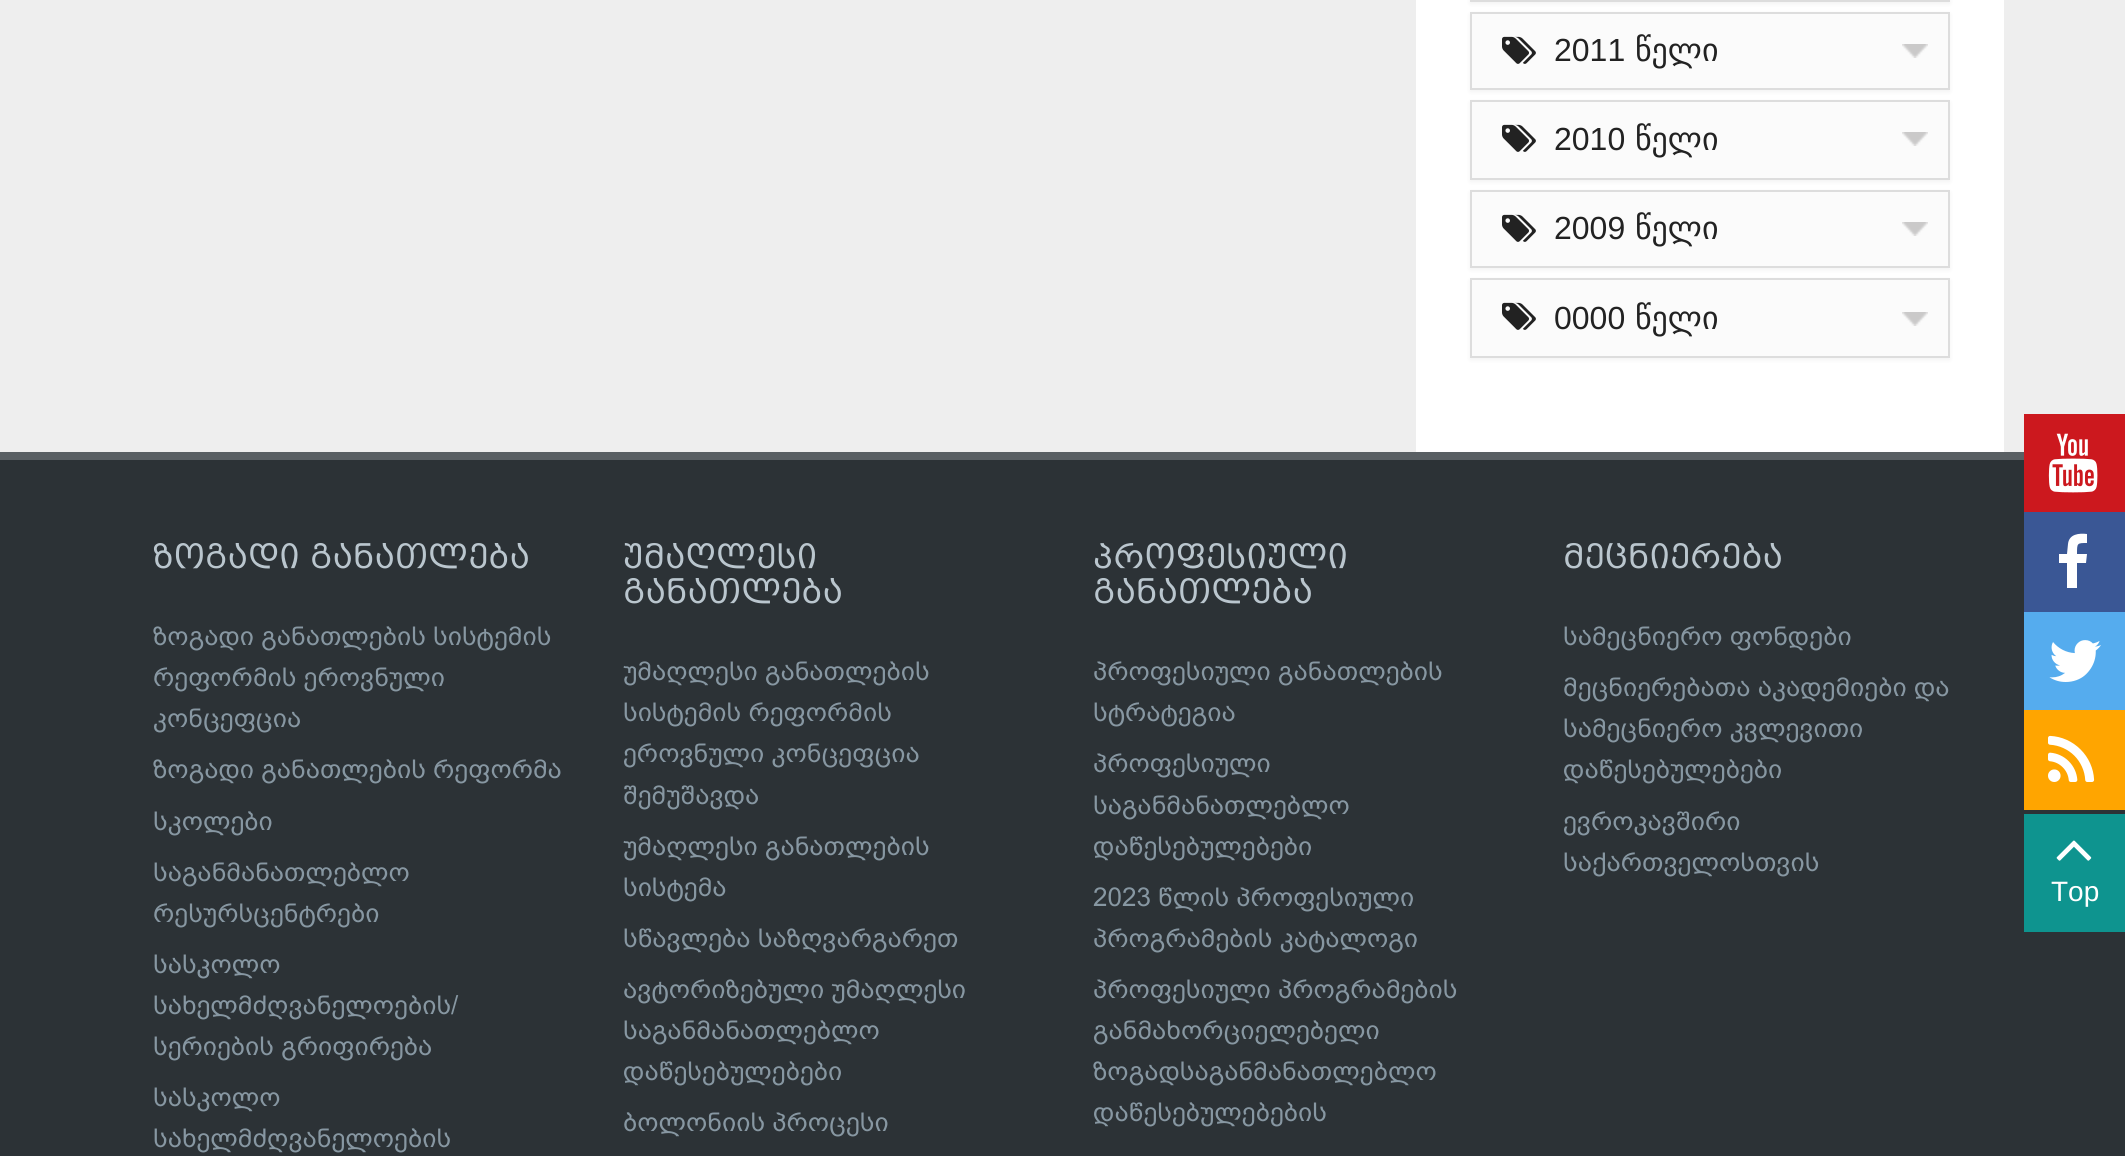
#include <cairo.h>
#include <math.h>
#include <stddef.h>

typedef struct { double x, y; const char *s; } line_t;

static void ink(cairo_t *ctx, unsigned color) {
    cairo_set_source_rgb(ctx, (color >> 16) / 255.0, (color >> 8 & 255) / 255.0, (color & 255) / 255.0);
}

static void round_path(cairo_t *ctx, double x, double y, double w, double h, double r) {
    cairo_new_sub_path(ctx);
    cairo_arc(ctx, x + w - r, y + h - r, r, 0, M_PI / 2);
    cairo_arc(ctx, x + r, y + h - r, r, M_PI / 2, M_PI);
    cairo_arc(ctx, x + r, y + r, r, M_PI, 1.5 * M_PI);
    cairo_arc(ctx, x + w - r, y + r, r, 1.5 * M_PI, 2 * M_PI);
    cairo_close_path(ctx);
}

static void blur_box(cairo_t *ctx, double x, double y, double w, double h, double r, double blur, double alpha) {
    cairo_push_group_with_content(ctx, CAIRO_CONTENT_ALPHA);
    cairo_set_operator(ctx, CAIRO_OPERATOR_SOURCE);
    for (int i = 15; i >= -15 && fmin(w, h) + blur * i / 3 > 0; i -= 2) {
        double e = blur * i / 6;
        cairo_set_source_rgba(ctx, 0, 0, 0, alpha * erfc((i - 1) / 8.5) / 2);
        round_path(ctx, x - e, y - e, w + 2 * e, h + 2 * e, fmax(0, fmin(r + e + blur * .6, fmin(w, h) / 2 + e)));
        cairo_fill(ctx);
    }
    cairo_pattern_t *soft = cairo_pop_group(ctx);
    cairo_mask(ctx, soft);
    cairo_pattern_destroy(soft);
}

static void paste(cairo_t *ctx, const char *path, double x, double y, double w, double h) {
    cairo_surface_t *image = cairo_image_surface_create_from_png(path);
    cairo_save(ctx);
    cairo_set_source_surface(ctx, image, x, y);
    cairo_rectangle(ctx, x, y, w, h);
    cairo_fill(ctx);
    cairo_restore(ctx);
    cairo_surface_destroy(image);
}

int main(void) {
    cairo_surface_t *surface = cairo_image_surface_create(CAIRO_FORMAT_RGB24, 2125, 1156);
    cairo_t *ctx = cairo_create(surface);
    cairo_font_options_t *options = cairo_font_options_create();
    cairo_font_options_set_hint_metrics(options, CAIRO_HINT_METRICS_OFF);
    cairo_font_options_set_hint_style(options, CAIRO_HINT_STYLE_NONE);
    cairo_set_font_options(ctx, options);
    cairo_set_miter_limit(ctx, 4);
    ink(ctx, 0xEEEEEE);
    cairo_paint(ctx);
    ink(ctx, 0xFFFFFF);
    cairo_rectangle(ctx, 1416, 0, 588, 452);
    cairo_fill(ctx);
    ink(ctx, 0x000000);
    blur_box(ctx, 1470, -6, 480, 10, 0, 2, 0.05);
    cairo_rectangle(ctx, 1471, -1, 478, 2);
    ink(ctx, 0xDDDDDD);
    cairo_stroke(ctx);
    ink(ctx, 0x000000);
    blur_box(ctx, 1470, 14, 480, 78, 0, 2, 0.05);
    cairo_rectangle(ctx, 1471, 13, 478, 76);
    ink(ctx, 0xDDDDDD);
    cairo_stroke(ctx);
    ink(ctx, 0xFBFBFB);
    cairo_rectangle(ctx, 1472, 14, 476, 74);
    cairo_fill(ctx);
    paste(ctx, "media/1.png", 1902, 44, 26, 14);
    paste(ctx, "media/2.png", 1502, 36, 34, 28);
    cairo_select_font_face(ctx, "Liberation Sans", CAIRO_FONT_SLANT_NORMAL, CAIRO_FONT_WEIGHT_NORMAL);
    cairo_set_font_size(ctx, 32);
    ink(ctx, 0x222222);
    cairo_move_to(ctx, 1554, 61);
    cairo_show_text(ctx, "2011");
    cairo_select_font_face(ctx, "DejaVu Sans", CAIRO_FONT_SLANT_NORMAL, CAIRO_FONT_WEIGHT_NORMAL);
    cairo_move_to(ctx, 1635, 61);
    cairo_show_text(ctx, "წელი");
    ink(ctx, 0x000000);
    blur_box(ctx, 1470, 102, 480, 80, 0, 2, 0.05);
    cairo_rectangle(ctx, 1471, 101, 478, 78);
    ink(ctx, 0xDDDDDD);
    cairo_stroke(ctx);
    ink(ctx, 0xFBFBFB);
    cairo_rectangle(ctx, 1472, 102, 476, 76);
    cairo_fill(ctx);
    paste(ctx, "media/1.png", 1902, 132, 26, 14);
    paste(ctx, "media/2.png", 1502, 124, 34, 28);
    cairo_select_font_face(ctx, "Liberation Sans", CAIRO_FONT_SLANT_NORMAL, CAIRO_FONT_WEIGHT_NORMAL);
    ink(ctx, 0x222222);
    cairo_move_to(ctx, 1554, 150);
    cairo_show_text(ctx, "2010");
    cairo_select_font_face(ctx, "DejaVu Sans", CAIRO_FONT_SLANT_NORMAL, CAIRO_FONT_WEIGHT_NORMAL);
    cairo_move_to(ctx, 1635, 150);
    cairo_show_text(ctx, "წელი");
    ink(ctx, 0x000000);
    blur_box(ctx, 1470, 192, 480, 78, 0, 2, 0.05);
    cairo_rectangle(ctx, 1471, 191, 478, 76);
    ink(ctx, 0xDDDDDD);
    cairo_stroke(ctx);
    ink(ctx, 0xFBFBFB);
    cairo_rectangle(ctx, 1472, 192, 476, 74);
    cairo_fill(ctx);
    paste(ctx, "media/1.png", 1902, 222, 26, 14);
    paste(ctx, "media/2.png", 1502, 214, 34, 28);
    cairo_select_font_face(ctx, "Liberation Sans", CAIRO_FONT_SLANT_NORMAL, CAIRO_FONT_WEIGHT_NORMAL);
    ink(ctx, 0x222222);
    cairo_move_to(ctx, 1554, 239);
    cairo_show_text(ctx, "2009");
    cairo_select_font_face(ctx, "DejaVu Sans", CAIRO_FONT_SLANT_NORMAL, CAIRO_FONT_WEIGHT_NORMAL);
    cairo_move_to(ctx, 1635, 239);
    cairo_show_text(ctx, "წელი");
    ink(ctx, 0x000000);
    blur_box(ctx, 1470, 280, 480, 80, 0, 2, 0.05);
    cairo_rectangle(ctx, 1471, 279, 478, 78);
    ink(ctx, 0xDDDDDD);
    cairo_stroke(ctx);
    ink(ctx, 0xFBFBFB);
    cairo_rectangle(ctx, 1472, 280, 476, 76);
    cairo_fill(ctx);
    paste(ctx, "media/1.png", 1902, 312, 26, 14);
    paste(ctx, "media/2.png", 1502, 302, 34, 28);
    cairo_select_font_face(ctx, "Liberation Sans", CAIRO_FONT_SLANT_NORMAL, CAIRO_FONT_WEIGHT_NORMAL);
    ink(ctx, 0x222222);
    cairo_move_to(ctx, 1554, 329);
    cairo_show_text(ctx, "0000");
    cairo_select_font_face(ctx, "DejaVu Sans", CAIRO_FONT_SLANT_NORMAL, CAIRO_FONT_WEIGHT_NORMAL);
    cairo_move_to(ctx, 1635, 329);
    cairo_show_text(ctx, "წელი");
    ink(ctx, 0x2C3236);
    cairo_rectangle(ctx, 0, 460, 2125, 696);
    cairo_fill(ctx);
    ink(ctx, 0x595F63);
    cairo_rectangle(ctx, 0, 452, 2024, 8);
    cairo_fill(ctx);
    cairo_select_font_face(ctx, "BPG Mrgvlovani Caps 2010", CAIRO_FONT_SLANT_NORMAL, CAIRO_FONT_WEIGHT_NORMAL);
    ink(ctx, 0xBAC6CE);
    cairo_move_to(ctx, 153, 568);
    cairo_show_text(ctx, "ზოგადი განათლება");
    cairo_select_font_face(ctx, "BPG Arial", CAIRO_FONT_SLANT_NORMAL, CAIRO_FONT_WEIGHT_NORMAL);
    cairo_set_font_size(ctx, 26);
    ink(ctx, 0x8797A2);
    {
        static const line_t items[] = {
            {153, 645, "ზოგადი განათლების სისტემის"},
            {153, 686, "რეფორმის ეროვნული"},
            {153, 727, "კონცეფცია"},
            {153, 778, "ზოგადი განათლების რეფორმა"},
            {153, 830, "სკოლები"},
            {153, 881, "საგანმანათლებლო"},
            {153, 922, "რესურსცენტრები"},
            {153, 973, "სასკოლო"},
            {153, 1014, "სახელმძღვანელოების/"},
            {153, 1055, "სერიების გრიფირება"},
            {153, 1106, "სასკოლო"},
            {153, 1147, "სახელმძღვანელოების"},
        };
        for (size_t i = 0; i < sizeof items / sizeof *items; i++) {
            cairo_move_to(ctx, items[i].x, items[i].y);
            cairo_show_text(ctx, items[i].s);
        }
    }
    cairo_select_font_face(ctx, "BPG Mrgvlovani Caps 2010", CAIRO_FONT_SLANT_NORMAL, CAIRO_FONT_WEIGHT_NORMAL);
    cairo_set_font_size(ctx, 32);
    ink(ctx, 0xBAC6CE);
    cairo_move_to(ctx, 623, 568);
    cairo_show_text(ctx, "უმაღლესი");
    cairo_move_to(ctx, 623, 603);
    cairo_show_text(ctx, "განათლება");
    cairo_select_font_face(ctx, "BPG Arial", CAIRO_FONT_SLANT_NORMAL, CAIRO_FONT_WEIGHT_NORMAL);
    cairo_set_font_size(ctx, 26);
    ink(ctx, 0x8797A2);
    {
        static const line_t items[] = {
            {623, 680, "უმაღლესი განათლების"},
            {623, 721, "სისტემის რეფორმის"},
            {623, 762, "ეროვნული კონცეფცია"},
            {623, 804, "შემუშავდა"},
            {623, 855, "უმაღლესი განათლების"},
            {623, 896, "სისტემა"},
            {623, 947, "სწავლება საზღვარგარეთ"},
            {623, 998, "ავტორიზებული უმაღლესი"},
            {623, 1039, "საგანმანათლებლო"},
            {623, 1080, "დაწესებულებები"},
            {623, 1131, "ბოლონიის პროცესი"},
        };
        for (size_t i = 0; i < sizeof items / sizeof *items; i++) {
            cairo_move_to(ctx, items[i].x, items[i].y);
            cairo_show_text(ctx, items[i].s);
        }
    }
    cairo_select_font_face(ctx, "BPG Mrgvlovani Caps 2010", CAIRO_FONT_SLANT_NORMAL, CAIRO_FONT_WEIGHT_NORMAL);
    cairo_set_font_size(ctx, 32);
    ink(ctx, 0xBAC6CE);
    cairo_move_to(ctx, 1093, 568);
    cairo_show_text(ctx, "პროფესიული");
    cairo_move_to(ctx, 1093, 603);
    cairo_show_text(ctx, "განათლება");
    cairo_select_font_face(ctx, "BPG Arial", CAIRO_FONT_SLANT_NORMAL, CAIRO_FONT_WEIGHT_NORMAL);
    cairo_set_font_size(ctx, 26);
    ink(ctx, 0x8797A2);
    {
        static const line_t items[] = {
            {1093, 680, "პროფესიული განათლების"},
            {1093, 721, "სტრატეგია"},
            {1093, 772, "პროფესიული"},
            {1093, 814, "საგანმანათლებლო"},
            {1093, 855, "დაწესებულებები"},
            {1093, 906, "2023 წლის პროფესიული"},
            {1093, 947, "პროგრამების კატალოგი"},
            {1093, 998, "პროფესიული პროგრამების"},
            {1093, 1039, "განმახორციელებელი"},
            {1093, 1080, "ზოგადსაგანმანათლებლო"},
            {1093, 1121, "დაწესებულებების"},
        };
        for (size_t i = 0; i < sizeof items / sizeof *items; i++) {
            cairo_move_to(ctx, items[i].x, items[i].y);
            cairo_show_text(ctx, items[i].s);
        }
    }
    cairo_select_font_face(ctx, "BPG Mrgvlovani Caps 2010", CAIRO_FONT_SLANT_NORMAL, CAIRO_FONT_WEIGHT_NORMAL);
    cairo_set_font_size(ctx, 32);
    ink(ctx, 0xBAC6CE);
    cairo_move_to(ctx, 1563, 568);
    cairo_show_text(ctx, "მეცნიერება");
    cairo_select_font_face(ctx, "BPG Arial", CAIRO_FONT_SLANT_NORMAL, CAIRO_FONT_WEIGHT_NORMAL);
    cairo_set_font_size(ctx, 26);
    ink(ctx, 0x8797A2);
    {
        static const line_t items[] = {
            {1563, 645, "სამეცნიერო ფონდები"},
            {1563, 696, "მეცნიერებათა აკადემიები და"},
            {1563, 737, "სამეცნიერო კვლევითი"},
            {1563, 778, "დაწესებულებები"},
            {1563, 830, "ევროკავშირი"},
            {1563, 871, "საქართველოსთვის"},
        };
        for (size_t i = 0; i < sizeof items / sizeof *items; i++) {
            cairo_move_to(ctx, items[i].x, items[i].y);
            cairo_show_text(ctx, items[i].s);
        }
    }
    ink(ctx, 0xCC181E);
    cairo_rectangle(ctx, 2024, 414, 101, 98);
    cairo_fill(ctx);
    paste(ctx, "media/3.png", 2048, 433, 50, 60);
    ink(ctx, 0x3A5795);
    cairo_rectangle(ctx, 2024, 512, 101, 100);
    cairo_fill(ctx);
    ink(ctx, 0xFFFFFF);
    cairo_new_path(ctx);
    cairo_move_to(ctx, 2087, 534);
    cairo_line_to(ctx, 2087, 543);
    cairo_curve_to(ctx, 2077, 543, 2077, 543, 2077, 554);
    cairo_line_to(ctx, 2087, 554);
    cairo_line_to(ctx, 2086, 563);
    cairo_line_to(ctx, 2077, 563);
    cairo_line_to(ctx, 2077, 588);
    cairo_line_to(ctx, 2067, 588);
    cairo_line_to(ctx, 2067, 563);
    cairo_line_to(ctx, 2059, 563);
    cairo_line_to(ctx, 2059, 554);
    cairo_line_to(ctx, 2067, 554);
    cairo_line_to(ctx, 2068, 544);
    cairo_curve_to(ctx, 2069, 534, 2079, 533, 2087, 534);
    cairo_close_path(ctx);
    cairo_fill(ctx);
    ink(ctx, 0x55ACEE);
    cairo_rectangle(ctx, 2024, 612, 101, 98);
    cairo_fill(ctx);
    paste(ctx, "media/4.png", 2049, 640, 52, 42);
    ink(ctx, 0xFFA500);
    cairo_rectangle(ctx, 2024, 710, 101, 100);
    cairo_fill(ctx);
    paste(ctx, "media/5.png", 2048, 735, 47, 47);
    ink(ctx, 0x0E948F);
    cairo_rectangle(ctx, 2024, 814, 101, 118);
    cairo_fill(ctx);
    paste(ctx, "media/6.png", 2056, 840, 36, 21);
    cairo_select_font_face(ctx, "Liberation Sans", CAIRO_FONT_SLANT_NORMAL, CAIRO_FONT_WEIGHT_NORMAL);
    cairo_set_font_size(ctx, 28);
    ink(ctx, 0xFFFFFF);
    cairo_move_to(ctx, 2051, 901);
    cairo_show_text(ctx, "Top");
    cairo_surface_write_to_png(surface, "image.png");
    cairo_font_options_destroy(options);
    cairo_destroy(ctx);
    cairo_surface_destroy(surface);
    return 0;
}
